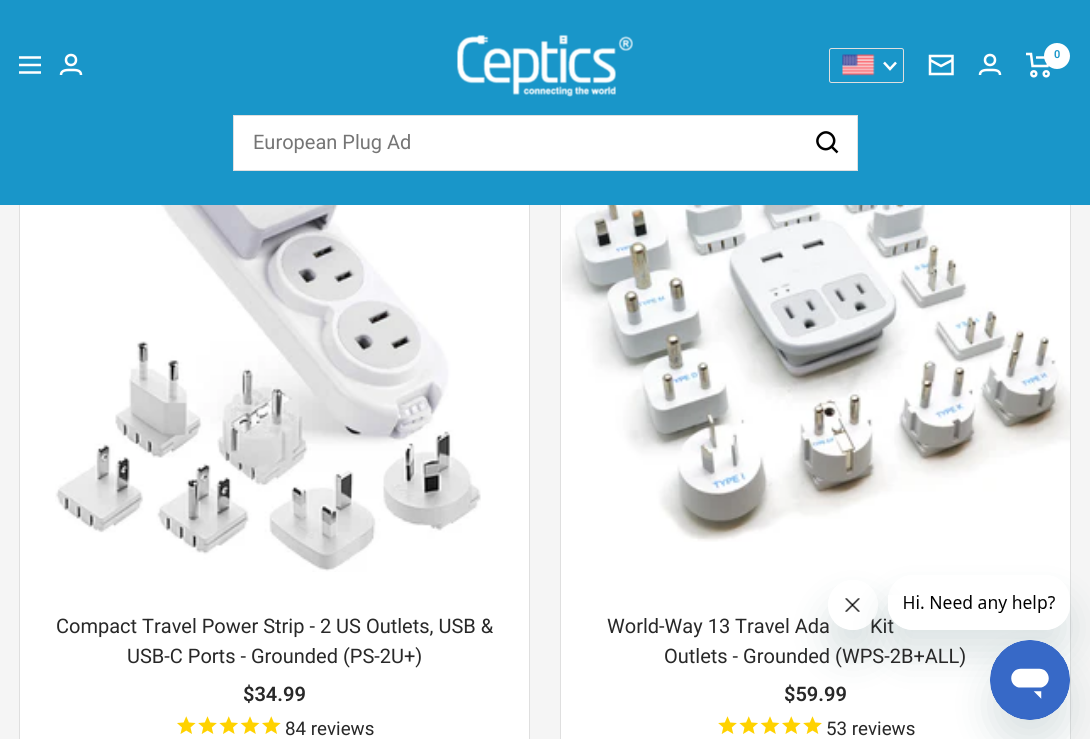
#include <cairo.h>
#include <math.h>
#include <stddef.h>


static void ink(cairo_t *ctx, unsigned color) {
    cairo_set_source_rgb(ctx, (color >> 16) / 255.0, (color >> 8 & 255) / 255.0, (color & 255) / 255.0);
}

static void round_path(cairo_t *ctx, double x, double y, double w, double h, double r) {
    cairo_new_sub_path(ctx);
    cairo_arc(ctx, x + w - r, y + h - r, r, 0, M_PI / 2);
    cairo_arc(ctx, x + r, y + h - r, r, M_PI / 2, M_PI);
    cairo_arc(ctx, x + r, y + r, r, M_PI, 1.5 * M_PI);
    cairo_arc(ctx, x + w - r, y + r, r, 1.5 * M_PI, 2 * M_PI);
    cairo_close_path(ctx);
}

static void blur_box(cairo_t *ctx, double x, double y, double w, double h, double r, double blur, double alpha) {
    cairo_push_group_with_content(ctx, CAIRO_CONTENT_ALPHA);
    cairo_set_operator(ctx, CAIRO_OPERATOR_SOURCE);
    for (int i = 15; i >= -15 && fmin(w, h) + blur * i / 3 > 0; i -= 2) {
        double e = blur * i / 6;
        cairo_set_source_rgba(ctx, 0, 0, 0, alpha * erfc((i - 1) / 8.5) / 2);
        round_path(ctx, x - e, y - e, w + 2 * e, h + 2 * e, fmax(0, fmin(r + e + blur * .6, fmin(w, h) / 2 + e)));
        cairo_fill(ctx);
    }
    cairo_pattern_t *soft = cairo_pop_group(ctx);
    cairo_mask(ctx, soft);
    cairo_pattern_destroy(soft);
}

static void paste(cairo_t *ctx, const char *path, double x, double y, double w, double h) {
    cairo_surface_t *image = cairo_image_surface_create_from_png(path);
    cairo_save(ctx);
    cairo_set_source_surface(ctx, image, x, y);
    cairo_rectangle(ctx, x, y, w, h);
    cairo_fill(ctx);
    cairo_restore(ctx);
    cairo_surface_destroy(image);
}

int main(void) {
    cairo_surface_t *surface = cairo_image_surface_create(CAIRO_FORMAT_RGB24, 1090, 739);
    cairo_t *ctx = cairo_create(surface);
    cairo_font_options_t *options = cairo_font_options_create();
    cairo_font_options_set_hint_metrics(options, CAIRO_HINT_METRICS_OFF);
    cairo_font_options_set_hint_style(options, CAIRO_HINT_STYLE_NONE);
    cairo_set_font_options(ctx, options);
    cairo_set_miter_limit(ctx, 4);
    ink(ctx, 0xF5F5F5);
    cairo_paint(ctx);
    cairo_rectangle(ctx, 19.5, 83.5, 510, 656);
    ink(ctx, 0xDFDFDF);
    cairo_set_line_width(ctx, 1);
    cairo_stroke(ctx);
    cairo_rectangle(ctx, 560.5, 83.5, 510, 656);
    cairo_stroke(ctx);
    ink(ctx, 0x1996C9);
    cairo_rectangle(ctx, 0, 0, 1090, 205);
    cairo_fill(ctx);
    cairo_new_path(ctx);
    cairo_move_to(ctx, 19, 57.5);
    cairo_line_to(ctx, 41, 57.5);
    cairo_move_to(ctx, 19, 72.5);
    cairo_line_to(ctx, 41, 72.5);
    cairo_close_path(ctx);
    cairo_move_to(ctx, 19, 65);
    cairo_line_to(ctx, 41, 65);
    cairo_close_path(ctx);
    ink(ctx, 0xFFFFFF);
    cairo_set_line_width(ctx, 2.5);
    cairo_stroke(ctx);
    cairo_arc(ctx, 71, 60, 5, 0, 2 * M_PI);
    cairo_stroke(ctx);
    cairo_new_path(ctx);
    cairo_move_to(ctx, 61, 75);
    cairo_curve_to(ctx, 61, 69.5, 67.5, 70, 71, 70);
    cairo_curve_to(ctx, 75, 70, 81, 69.5, 81, 75);
    cairo_stroke(ctx);
    paste(ctx, "media/1.png", 457, 34, 176, 63);
    round_path(ctx, 829.5, 48.5, 74, 34, 2);
    ink(ctx, 0xDFDFDF);
    cairo_set_line_width(ctx, 1);
    cairo_stroke(ctx);
    paste(ctx, "media/2.png", 842, 54, 33, 22);
    cairo_new_path(ctx);
    cairo_move_to(ctx, 884, 62.5);
    cairo_line_to(ctx, 890, 69);
    cairo_line_to(ctx, 896, 62.5);
    ink(ctx, 0xFFFFFF);
    cairo_set_line_width(ctx, 2.5);
    cairo_stroke(ctx);
    cairo_new_path(ctx);
    cairo_move_to(ctx, 952.5, 60);
    cairo_line_to(ctx, 941, 66);
    cairo_line_to(ctx, 930, 60);
    cairo_move_to(ctx, 930, 56);
    cairo_line_to(ctx, 952.5, 56);
    cairo_line_to(ctx, 952.5, 74);
    cairo_line_to(ctx, 930, 74);
    cairo_close_path(ctx);
    cairo_stroke(ctx);
    cairo_arc(ctx, 990, 60, 5, 0, 2 * M_PI);
    cairo_stroke(ctx);
    cairo_new_path(ctx);
    cairo_move_to(ctx, 980, 75);
    cairo_curve_to(ctx, 980, 69.5, 986, 70, 990, 70);
    cairo_curve_to(ctx, 994, 70, 1000, 69.5, 1000, 75);
    cairo_stroke(ctx);
    cairo_new_path(ctx);
    cairo_move_to(ctx, 1026, 54);
    cairo_line_to(ctx, 1031, 54);
    cairo_line_to(ctx, 1032.5, 66);
    cairo_line_to(ctx, 1047.5, 66);
    cairo_line_to(ctx, 1050, 57.5);
    cairo_line_to(ctx, 1036, 57.5);
    cairo_stroke(ctx);
    cairo_arc(ctx, 1033.8, 73.8, 2.5, 0, 2 * M_PI);
    cairo_stroke(ctx);
    cairo_arc(ctx, 1046.2, 73.8, 2.5, 0, 2 * M_PI);
    cairo_stroke(ctx);
    cairo_arc(ctx, 1057, 56, 13, 0, 2 * M_PI);
    cairo_fill(ctx);
    cairo_select_font_face(ctx, "Roboto SemiBold", CAIRO_FONT_SLANT_NORMAL, CAIRO_FONT_WEIGHT_NORMAL);
    cairo_set_font_size(ctx, 11);
    ink(ctx, 0x1996C9);
    cairo_move_to(ctx, 1054, 58);
    cairo_show_text(ctx, "0");
    ink(ctx, 0xFFFFFF);
    cairo_rectangle(ctx, 233.5, 115.5, 624, 55);
    cairo_fill_preserve(ctx);
    ink(ctx, 0xDFDFDF);
    cairo_set_line_width(ctx, 1);
    cairo_stroke(ctx);
    cairo_select_font_face(ctx, "Roboto", CAIRO_FONT_SLANT_NORMAL, CAIRO_FONT_WEIGHT_NORMAL);
    cairo_set_font_size(ctx, 20);
    ink(ctx, 0x757575);
    cairo_move_to(ctx, 253, 149);
    cairo_show_text(ctx, "European Plug Ad");
    cairo_new_path(ctx);
    cairo_move_to(ctx, 831.5, 146.5);
    cairo_curve_to(ctx, 839.5, 139, 828, 127, 820, 135);
    cairo_curve_to(ctx, 812, 143, 824, 154.5, 831.5, 146.5);
    cairo_close_path(ctx);
    cairo_move_to(ctx, 831.5, 146.5);
    cairo_line_to(ctx, 837.5, 152.5);
    ink(ctx, 0x000000);
    cairo_set_line_width(ctx, 2.5);
    cairo_stroke(ctx);
    ink(ctx, 0xFFFFFF);
    cairo_rectangle(ctx, 561, 205, 509, 534);
    cairo_fill(ctx);
    cairo_save(ctx);
    cairo_set_fill_rule(ctx, CAIRO_FILL_RULE_EVEN_ODD);
    cairo_new_path(ctx);
    cairo_move_to(ctx, 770, 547);
    cairo_line_to(ctx, 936, 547);
    cairo_line_to(ctx, 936, 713);
    cairo_line_to(ctx, 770, 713);
    cairo_close_path(ctx);
    cairo_move_to(ctx, 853, 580);
    cairo_curve_to(ctx, 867, 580, 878, 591, 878, 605);
    cairo_curve_to(ctx, 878, 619, 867, 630, 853, 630);
    cairo_curve_to(ctx, 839, 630, 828, 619, 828, 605);
    cairo_curve_to(ctx, 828, 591, 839, 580, 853, 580);
    cairo_close_path(ctx);
    cairo_clip(ctx);
    ink(ctx, 0x17494D);
    blur_box(ctx, 828, 605, 50, 50, 25, 19, 0.15);
    cairo_restore(ctx);
    ink(ctx, 0x282828);
    cairo_move_to(ctx, 870, 633);
    cairo_show_text(ctx, "Kit");
    paste(ctx, "media/4.png", 834, 598, 40, 32);
    cairo_save(ctx);
    cairo_set_fill_rule(ctx, CAIRO_FILL_RULE_EVEN_ODD);
    cairo_new_path(ctx);
    cairo_move_to(ctx, 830, 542);
    cairo_line_to(ctx, 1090, 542);
    cairo_line_to(ctx, 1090, 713);
    cairo_line_to(ctx, 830, 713);
    cairo_close_path(ctx);
    cairo_move_to(ctx, 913, 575);
    cairo_line_to(ctx, 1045, 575);
    cairo_curve_to(ctx, 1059, 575, 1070, 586, 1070, 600);
    cairo_line_to(ctx, 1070, 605);
    cairo_curve_to(ctx, 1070, 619, 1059, 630, 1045, 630);
    cairo_line_to(ctx, 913, 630);
    cairo_curve_to(ctx, 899, 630, 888, 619, 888, 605);
    cairo_line_to(ctx, 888, 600);
    cairo_curve_to(ctx, 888, 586, 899, 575, 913, 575);
    cairo_close_path(ctx);
    cairo_clip(ctx);
    ink(ctx, 0x17494D);
    blur_box(ctx, 888, 600, 182, 55, 25, 19, 0.15);
    cairo_restore(ctx);
    paste(ctx, "media/3.png", 888, 595, 167, 35);
    ink(ctx, 0x17494D);
    blur_box(ctx, 990, 665, 80, 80, 40, 19, 0.15);
    paste(ctx, "media/5.png", 990, 640, 80, 80);
    ink(ctx, 0xFFFFFF);
    cairo_rectangle(ctx, 20, 205, 509, 534);
    cairo_fill(ctx);
    paste(ctx, "media/6.png", 55, 205, 426, 367);
    ink(ctx, 0x282828);
    cairo_move_to(ctx, 56, 633);
    cairo_show_text(ctx, "Compact Travel Power Strip - 2 US Outlets, USB &");
    cairo_move_to(ctx, 127, 663);
    cairo_show_text(ctx, "USB-C Ports - Grounded (PS-2U+)");
    cairo_select_font_face(ctx, "Roboto SemiBold", CAIRO_FONT_SLANT_NORMAL, CAIRO_FONT_WEIGHT_NORMAL);
    cairo_move_to(ctx, 243, 701);
    cairo_show_text(ctx, "$34.99");
    paste(ctx, "media/7.png", 177, 716, 19, 18);
    paste(ctx, "media/8.png", 198, 716, 19, 18);
    paste(ctx, "media/9.png", 219, 716, 19, 18);
    paste(ctx, "media/10.png", 240, 716, 20, 18);
    paste(ctx, "media/7.png", 262, 716, 19, 18);
    cairo_select_font_face(ctx, "Roboto", CAIRO_FONT_SLANT_NORMAL, CAIRO_FONT_WEIGHT_NORMAL);
    cairo_set_font_size(ctx, 18.75);
    cairo_move_to(ctx, 285, 735);
    cairo_show_text(ctx, "84 reviews");
    paste(ctx, "media/11.png", 562, 205, 508, 337);
    cairo_set_font_size(ctx, 20);
    cairo_move_to(ctx, 607, 633);
    cairo_show_text(ctx, "World-Way 13 Travel Ada");
    cairo_move_to(ctx, 664, 663);
    cairo_show_text(ctx, "Outlets - Grounded (WPS-2B+ALL)");
    cairo_select_font_face(ctx, "Roboto SemiBold", CAIRO_FONT_SLANT_NORMAL, CAIRO_FONT_WEIGHT_NORMAL);
    cairo_move_to(ctx, 784, 701);
    cairo_show_text(ctx, "$59.99");
    paste(ctx, "media/8.png", 718, 716, 19, 18);
    paste(ctx, "media/9.png", 739, 716, 19, 18);
    paste(ctx, "media/10.png", 760, 716, 20, 18);
    paste(ctx, "media/7.png", 782, 716, 19, 18);
    paste(ctx, "media/8.png", 803, 716, 19, 18);
    cairo_select_font_face(ctx, "Roboto", CAIRO_FONT_SLANT_NORMAL, CAIRO_FONT_WEIGHT_NORMAL);
    cairo_set_font_size(ctx, 18.75);
    cairo_move_to(ctx, 826, 735);
    cairo_show_text(ctx, "53 reviews");
    cairo_surface_write_to_png(surface, "image.png");
    cairo_font_options_destroy(options);
    cairo_destroy(ctx);
    cairo_surface_destroy(surface);
    return 0;
}
